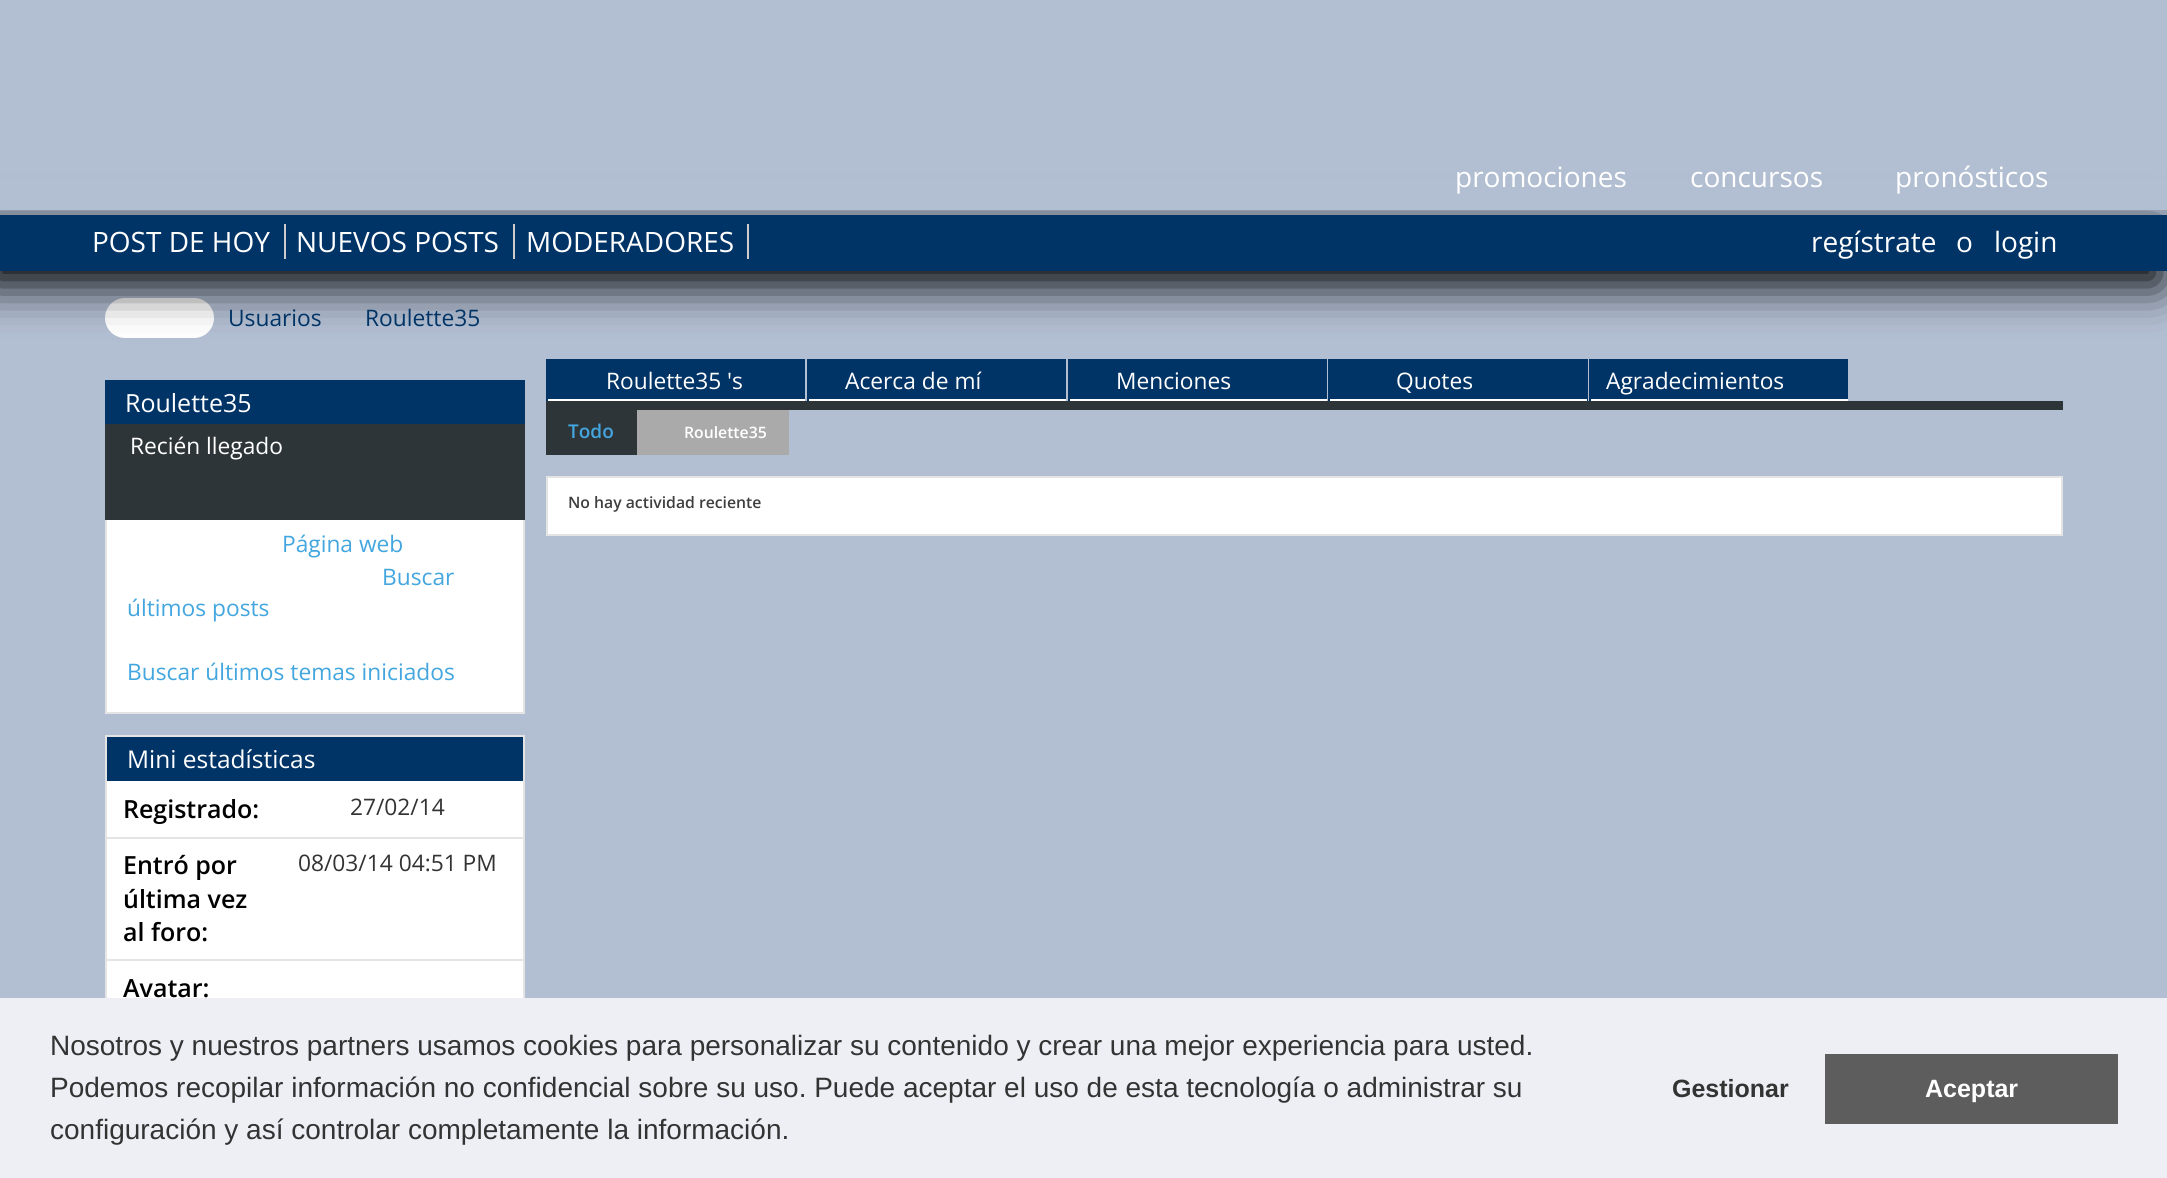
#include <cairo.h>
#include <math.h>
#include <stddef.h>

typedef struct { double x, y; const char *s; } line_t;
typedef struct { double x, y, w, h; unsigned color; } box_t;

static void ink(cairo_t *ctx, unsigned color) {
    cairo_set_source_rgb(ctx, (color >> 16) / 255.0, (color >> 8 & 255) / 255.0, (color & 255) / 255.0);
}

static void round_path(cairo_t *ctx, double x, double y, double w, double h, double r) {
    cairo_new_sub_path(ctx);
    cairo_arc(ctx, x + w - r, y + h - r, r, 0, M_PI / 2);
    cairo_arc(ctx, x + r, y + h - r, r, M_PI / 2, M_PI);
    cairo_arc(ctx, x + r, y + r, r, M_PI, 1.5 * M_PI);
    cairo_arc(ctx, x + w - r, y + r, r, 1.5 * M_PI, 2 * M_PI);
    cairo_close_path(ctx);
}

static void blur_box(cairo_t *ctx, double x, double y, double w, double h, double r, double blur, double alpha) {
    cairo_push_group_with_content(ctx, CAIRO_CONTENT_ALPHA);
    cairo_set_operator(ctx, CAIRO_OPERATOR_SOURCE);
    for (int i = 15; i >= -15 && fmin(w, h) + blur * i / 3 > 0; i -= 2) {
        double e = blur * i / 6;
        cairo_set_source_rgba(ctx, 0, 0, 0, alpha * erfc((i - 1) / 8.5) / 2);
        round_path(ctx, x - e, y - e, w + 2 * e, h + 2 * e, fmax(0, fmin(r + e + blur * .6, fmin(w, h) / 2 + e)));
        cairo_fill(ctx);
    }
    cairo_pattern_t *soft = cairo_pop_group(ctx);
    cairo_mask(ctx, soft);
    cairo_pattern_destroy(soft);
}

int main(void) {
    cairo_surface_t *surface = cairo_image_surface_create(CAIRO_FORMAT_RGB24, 2167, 1178);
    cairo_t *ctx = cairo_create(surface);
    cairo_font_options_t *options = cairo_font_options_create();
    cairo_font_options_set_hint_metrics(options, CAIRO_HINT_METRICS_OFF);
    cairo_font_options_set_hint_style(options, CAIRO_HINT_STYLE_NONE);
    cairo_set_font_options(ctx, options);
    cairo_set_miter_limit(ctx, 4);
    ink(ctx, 0xB2BED2);
    cairo_paint(ctx);
    ink(ctx, 0xFFFFFF);
    round_path(ctx, 105, 298, 109, 40, 20);
    cairo_fill(ctx);
    ink(ctx, 0x000000);
    blur_box(ctx, -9, 229, 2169, 56, 0, 22, 1);
    ink(ctx, 0x003366);
    cairo_rectangle(ctx, 0, 215, 2167, 56);
    cairo_fill(ctx);
    ink(ctx, 0xCCCCCC);
    cairo_rectangle(ctx, 284, 224, 2, 35);
    cairo_fill(ctx);
    cairo_select_font_face(ctx, "Open Sans", CAIRO_FONT_SLANT_NORMAL, CAIRO_FONT_WEIGHT_NORMAL);
    cairo_set_font_size(ctx, 28);
    ink(ctx, 0xFFFFFF);
    cairo_move_to(ctx, 92, 252);
    cairo_show_text(ctx, "POST DE HOY");
    ink(ctx, 0xCCCCCC);
    cairo_rectangle(ctx, 513, 224, 2, 35);
    cairo_fill(ctx);
    ink(ctx, 0xFFFFFF);
    cairo_move_to(ctx, 296, 252);
    cairo_show_text(ctx, "NUEVOS POSTS");
    ink(ctx, 0xCCCCCC);
    cairo_rectangle(ctx, 747, 224, 2, 35);
    cairo_fill(ctx);
    ink(ctx, 0xFFFFFF);
    cairo_move_to(ctx, 526, 252);
    cairo_show_text(ctx, "MODERADORES");
    ink(ctx, 0xB2BED2);
    cairo_rectangle(ctx, 0, 180, 2167, 30);
    cairo_fill(ctx);
    ink(ctx, 0xFFFFFF);
    {
        static const line_t items[] = {
            {1455, 187, "promociones"},
            {1690, 187, "concursos"},
            {1895, 187, "pronósticos"},
            {1811, 252, "regístrate"},
            {1956, 252, "o"},
            {1994, 252, "login"},
        };
        for (size_t i = 0; i < sizeof items / sizeof *items; i++) {
            cairo_move_to(ctx, items[i].x, items[i].y);
            cairo_show_text(ctx, items[i].s);
        }
    }
    cairo_set_font_size(ctx, 22.75);
    ink(ctx, 0x003366);
    cairo_move_to(ctx, 228, 326);
    cairo_show_text(ctx, "Usuarios");
    cairo_move_to(ctx, 365, 326);
    cairo_show_text(ctx, "Roulette35");
    cairo_rectangle(ctx, 105, 380, 420, 44);
    cairo_fill(ctx);
    cairo_set_font_size(ctx, 25);
    ink(ctx, 0xFFFFFF);
    cairo_move_to(ctx, 125, 412);
    cairo_show_text(ctx, "Roulette35");
    {
        static const box_t items[] = {
            {107, 520, 416, 192, 0xFFFFFF},
            {523, 520, 2, 194, 0xE4E4E4},
            {105, 712, 420, 2, 0xE4E4E4},
            {105, 520, 2, 194, 0xE4E4E4},
            {105, 424, 420, 96, 0x2E3539},
        };
        for (size_t i = 0; i < sizeof items / sizeof *items; i++) {
            ink(ctx, items[i].color);
            cairo_rectangle(ctx, items[i].x, items[i].y, items[i].w, items[i].h);
            cairo_fill(ctx);
        }
    }
    cairo_set_font_size(ctx, 22.75);
    ink(ctx, 0xFFFFFF);
    cairo_move_to(ctx, 130, 454);
    cairo_show_text(ctx, "Recién llegado");
    ink(ctx, 0x43A6DF);
    {
        static const line_t items[] = {
            {282, 552, "Página web"},
            {382, 585, "Buscar"},
            {127, 616, "últimos posts"},
            {127, 680, "Buscar últimos temas iniciados"},
        };
        for (size_t i = 0; i < sizeof items / sizeof *items; i++) {
            cairo_move_to(ctx, items[i].x, items[i].y);
            cairo_show_text(ctx, items[i].s);
        }
    }
    cairo_rectangle(ctx, 106, 736, 418, 324);
    ink(ctx, 0xE4E4E4);
    cairo_stroke(ctx);
    ink(ctx, 0x003366);
    cairo_rectangle(ctx, 107, 737, 416, 44);
    cairo_fill(ctx);
    cairo_set_font_size(ctx, 24.5);
    ink(ctx, 0xFFFFFF);
    cairo_move_to(ctx, 127, 768);
    cairo_show_text(ctx, "Mini estadísticas");
    cairo_rectangle(ctx, 107, 781, 416, 217);
    cairo_fill(ctx);
    ink(ctx, 0xE4E4E4);
    cairo_rectangle(ctx, 107, 837, 416, 2);
    cairo_fill(ctx);
    cairo_select_font_face(ctx, "Open Sans SemiBold", CAIRO_FONT_SLANT_NORMAL, CAIRO_FONT_WEIGHT_NORMAL);
    cairo_set_font_size(ctx, 25);
    ink(ctx, 0x000000);
    cairo_move_to(ctx, 123, 818);
    cairo_show_text(ctx, "Registrado:");
    cairo_select_font_face(ctx, "Open Sans", CAIRO_FONT_SLANT_NORMAL, CAIRO_FONT_WEIGHT_NORMAL);
    cairo_set_font_size(ctx, 22.75);
    ink(ctx, 0x333333);
    cairo_move_to(ctx, 350, 815);
    cairo_show_text(ctx, "27/02/14");
    ink(ctx, 0xE4E4E4);
    cairo_rectangle(ctx, 107, 959, 416, 2);
    cairo_fill(ctx);
    cairo_select_font_face(ctx, "Open Sans SemiBold", CAIRO_FONT_SLANT_NORMAL, CAIRO_FONT_WEIGHT_NORMAL);
    cairo_set_font_size(ctx, 25);
    ink(ctx, 0x000000);
    {
        static const line_t items[] = {
            {123, 874, "Entró por"},
            {123, 908, "última vez"},
            {123, 941, "al foro:"},
        };
        for (size_t i = 0; i < sizeof items / sizeof *items; i++) {
            cairo_move_to(ctx, items[i].x, items[i].y);
            cairo_show_text(ctx, items[i].s);
        }
    }
    cairo_select_font_face(ctx, "Open Sans", CAIRO_FONT_SLANT_NORMAL, CAIRO_FONT_WEIGHT_NORMAL);
    cairo_set_font_size(ctx, 22.75);
    ink(ctx, 0x333333);
    cairo_move_to(ctx, 298, 871);
    cairo_show_text(ctx, "08/03/14 04:51 PM");
    cairo_select_font_face(ctx, "Open Sans SemiBold", CAIRO_FONT_SLANT_NORMAL, CAIRO_FONT_WEIGHT_NORMAL);
    cairo_set_font_size(ctx, 25);
    ink(ctx, 0x000000);
    cairo_move_to(ctx, 123, 997);
    cairo_show_text(ctx, "Avatar:");
    {
        static const box_t items[] = {
            {548, 359, 257, 40, 0x003366},
            {546, 399, 259, 2, 0xFFFFFF},
            {546, 359, 2, 42, 0x003366},
        };
        for (size_t i = 0; i < sizeof items / sizeof *items; i++) {
            ink(ctx, items[i].color);
            cairo_rectangle(ctx, items[i].x, items[i].y, items[i].w, items[i].h);
            cairo_fill(ctx);
        }
    }
    cairo_select_font_face(ctx, "Open Sans", CAIRO_FONT_SLANT_NORMAL, CAIRO_FONT_WEIGHT_NORMAL);
    cairo_set_font_size(ctx, 22.75);
    ink(ctx, 0xFFFFFF);
    cairo_move_to(ctx, 606, 389);
    cairo_show_text(ctx, "Roulette35 's");
    {
        static const box_t items[] = {
            {809, 359, 257, 40, 0x003366},
            {807, 399, 259, 2, 0xFFFFFF},
            {807, 359, 2, 42, 0x003366},
        };
        for (size_t i = 0; i < sizeof items / sizeof *items; i++) {
            ink(ctx, items[i].color);
            cairo_rectangle(ctx, items[i].x, items[i].y, items[i].w, items[i].h);
            cairo_fill(ctx);
        }
    }
    ink(ctx, 0xFFFFFF);
    cairo_move_to(ctx, 845, 389);
    cairo_show_text(ctx, "Acerca de mí");
    {
        static const box_t items[] = {
            {1070, 359, 257, 40, 0x003366},
            {1068, 399, 259, 2, 0xFFFFFF},
            {1068, 359, 2, 42, 0x003366},
        };
        for (size_t i = 0; i < sizeof items / sizeof *items; i++) {
            ink(ctx, items[i].color);
            cairo_rectangle(ctx, items[i].x, items[i].y, items[i].w, items[i].h);
            cairo_fill(ctx);
        }
    }
    ink(ctx, 0xFFFFFF);
    cairo_move_to(ctx, 1116, 389);
    cairo_show_text(ctx, "Menciones");
    {
        static const box_t items[] = {
            {1330, 359, 256, 40, 0x003366},
            {1586, 359, 2, 42, 0x003366},
            {1328, 399, 259, 2, 0xFFFFFF},
            {1328, 359, 2, 42, 0x003366},
        };
        for (size_t i = 0; i < sizeof items / sizeof *items; i++) {
            ink(ctx, items[i].color);
            cairo_rectangle(ctx, items[i].x, items[i].y, items[i].w, items[i].h);
            cairo_fill(ctx);
        }
    }
    ink(ctx, 0xFFFFFF);
    cairo_move_to(ctx, 1396, 389);
    cairo_show_text(ctx, "Quotes");
    {
        static const box_t items[] = {
            {1591, 359, 257, 40, 0x003366},
            {1589, 399, 259, 2, 0xFFFFFF},
            {1589, 359, 2, 42, 0x003366},
        };
        for (size_t i = 0; i < sizeof items / sizeof *items; i++) {
            ink(ctx, items[i].color);
            cairo_rectangle(ctx, items[i].x, items[i].y, items[i].w, items[i].h);
            cairo_fill(ctx);
        }
    }
    ink(ctx, 0xFFFFFF);
    cairo_move_to(ctx, 1606, 389);
    cairo_show_text(ctx, "Agradecimientos");
    ink(ctx, 0x2E3539);
    cairo_rectangle(ctx, 546, 401, 1517, 9);
    cairo_fill(ctx);
    cairo_rectangle(ctx, 546, 410, 91, 45);
    cairo_fill(ctx);
    cairo_select_font_face(ctx, "Open Sans SemiBold", CAIRO_FONT_SLANT_NORMAL, CAIRO_FONT_WEIGHT_NORMAL);
    cairo_set_font_size(ctx, 19);
    ink(ctx, 0x43A6DF);
    cairo_move_to(ctx, 568, 438);
    cairo_show_text(ctx, "Todo");
    ink(ctx, 0xAAAAAA);
    cairo_rectangle(ctx, 637, 410, 152, 45);
    cairo_fill(ctx);
    cairo_set_font_size(ctx, 15.75);
    ink(ctx, 0xFFFFFF);
    cairo_move_to(ctx, 684, 438);
    cairo_show_text(ctx, "Roulette35");
    cairo_rectangle(ctx, 547, 477, 1515, 58);
    cairo_fill_preserve(ctx);
    ink(ctx, 0xE4E4E4);
    cairo_stroke(ctx);
    ink(ctx, 0x3E3E3E);
    cairo_move_to(ctx, 568, 508);
    cairo_show_text(ctx, "No hay actividad reciente");
    ink(ctx, 0xEDEFF5);
    cairo_rectangle(ctx, 0, 998, 2167, 180);
    cairo_fill(ctx);
    cairo_select_font_face(ctx, "Liberation Sans", CAIRO_FONT_SLANT_NORMAL, CAIRO_FONT_WEIGHT_NORMAL);
    cairo_set_font_size(ctx, 28);
    ink(ctx, 0x333333);
    {
        static const line_t items[] = {
            {50, 1055, "Nosotros y nuestros partners usamos cookies para personalizar su contenido y crear una mejor experiencia para usted."},
            {50, 1097, "Podemos recopilar información no confidencial sobre su uso. Puede aceptar el uso de esta tecnología o administrar su"},
            {50, 1139, "configuración y así controlar completamente la información."},
        };
        for (size_t i = 0; i < sizeof items / sizeof *items; i++) {
            cairo_move_to(ctx, items[i].x, items[i].y);
            cairo_show_text(ctx, items[i].s);
        }
    }
    cairo_select_font_face(ctx, "Liberation Sans", CAIRO_FONT_SLANT_NORMAL, CAIRO_FONT_WEIGHT_BOLD);
    cairo_set_font_size(ctx, 25);
    cairo_move_to(ctx, 1672, 1097);
    cairo_show_text(ctx, "Gestionar");
    ink(ctx, 0x5D5D5D);
    cairo_rectangle(ctx, 1825, 1054, 293, 70);
    cairo_fill(ctx);
    ink(ctx, 0xFFFFFF);
    cairo_move_to(ctx, 1925, 1097);
    cairo_show_text(ctx, "Aceptar");
    cairo_surface_write_to_png(surface, "image.png");
    cairo_font_options_destroy(options);
    cairo_destroy(ctx);
    cairo_surface_destroy(surface);
    return 0;
}
